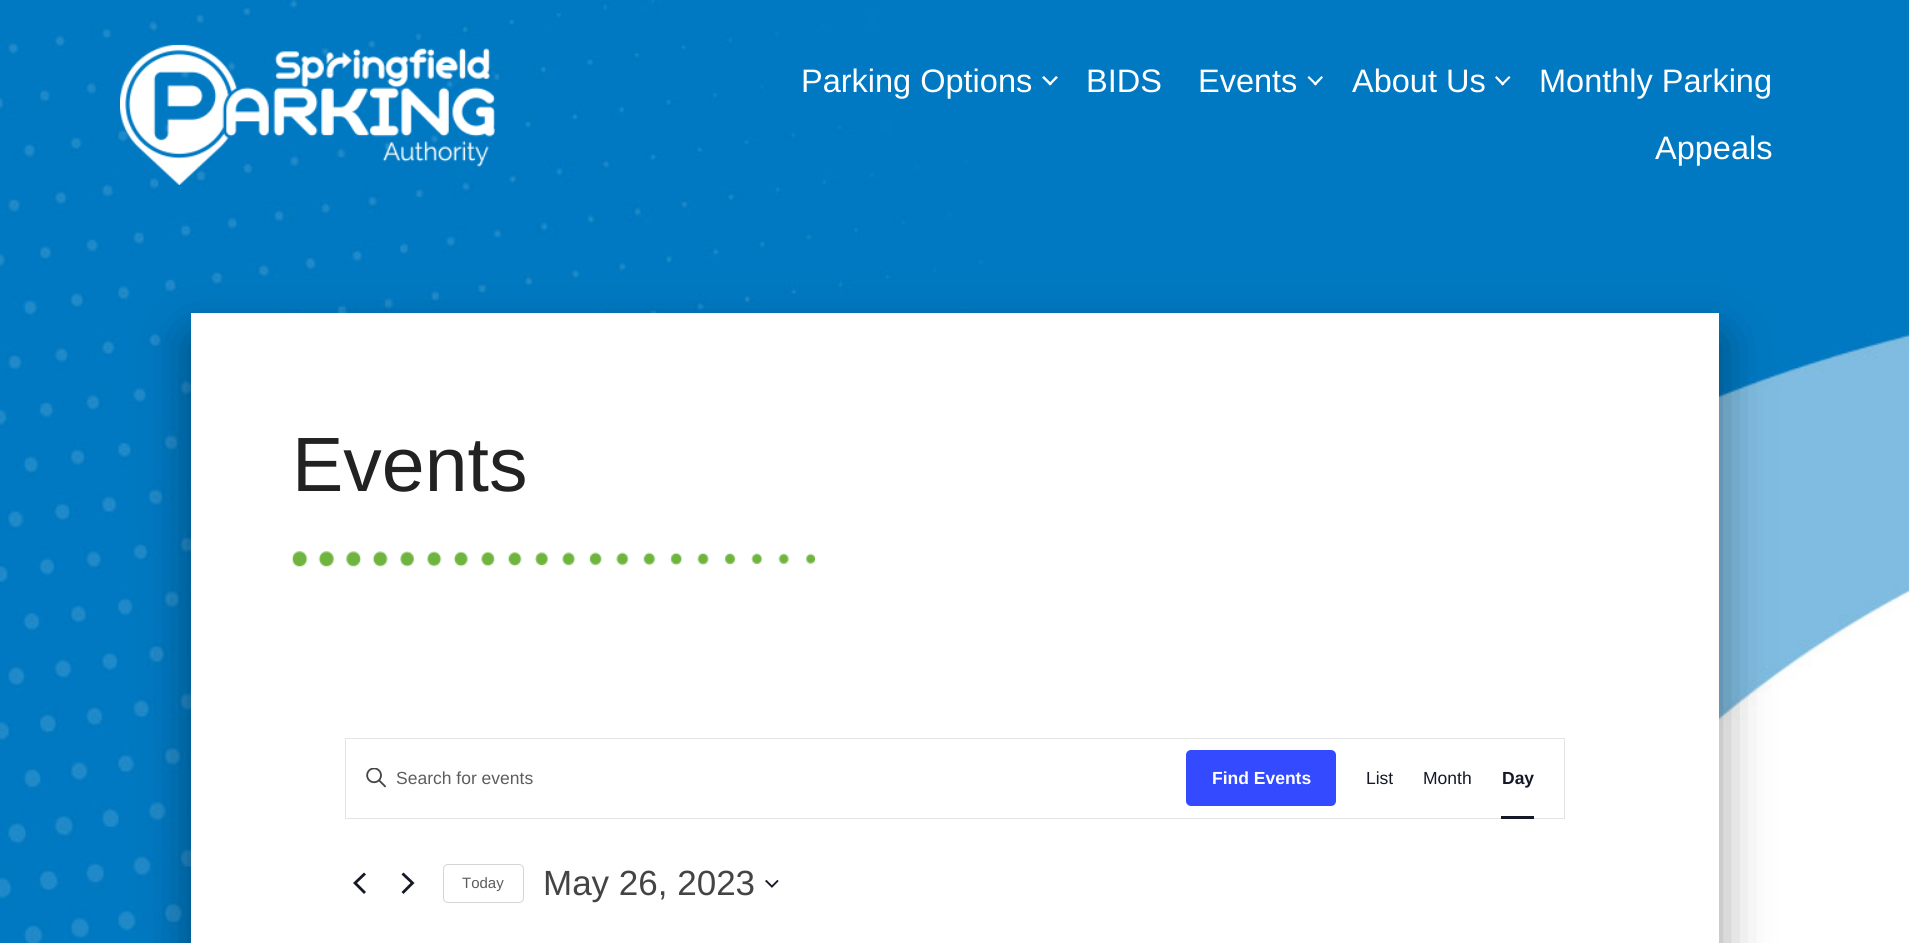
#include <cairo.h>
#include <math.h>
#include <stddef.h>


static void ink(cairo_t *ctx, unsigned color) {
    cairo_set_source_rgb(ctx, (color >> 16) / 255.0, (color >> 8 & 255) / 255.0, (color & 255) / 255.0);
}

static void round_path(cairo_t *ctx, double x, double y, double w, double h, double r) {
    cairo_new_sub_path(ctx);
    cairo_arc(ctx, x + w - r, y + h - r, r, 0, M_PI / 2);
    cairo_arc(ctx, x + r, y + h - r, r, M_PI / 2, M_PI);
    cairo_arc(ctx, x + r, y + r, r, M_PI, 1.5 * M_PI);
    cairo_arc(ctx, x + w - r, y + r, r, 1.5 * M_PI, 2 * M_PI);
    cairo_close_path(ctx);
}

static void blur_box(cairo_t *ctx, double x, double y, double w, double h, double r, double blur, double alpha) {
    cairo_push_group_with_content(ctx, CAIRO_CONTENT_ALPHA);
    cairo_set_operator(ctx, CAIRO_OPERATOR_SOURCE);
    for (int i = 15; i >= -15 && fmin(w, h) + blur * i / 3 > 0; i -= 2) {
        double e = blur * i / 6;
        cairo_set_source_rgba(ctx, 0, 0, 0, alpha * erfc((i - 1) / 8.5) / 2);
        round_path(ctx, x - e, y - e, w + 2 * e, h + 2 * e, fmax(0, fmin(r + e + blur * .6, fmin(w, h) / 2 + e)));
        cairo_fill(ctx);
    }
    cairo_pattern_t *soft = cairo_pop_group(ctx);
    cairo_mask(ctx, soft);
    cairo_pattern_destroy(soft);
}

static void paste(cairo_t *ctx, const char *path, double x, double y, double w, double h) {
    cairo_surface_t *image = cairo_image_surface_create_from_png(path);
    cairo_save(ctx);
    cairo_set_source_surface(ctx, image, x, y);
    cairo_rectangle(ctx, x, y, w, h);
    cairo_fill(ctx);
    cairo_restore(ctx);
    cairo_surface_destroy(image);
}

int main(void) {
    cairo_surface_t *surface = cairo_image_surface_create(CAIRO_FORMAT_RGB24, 1909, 943);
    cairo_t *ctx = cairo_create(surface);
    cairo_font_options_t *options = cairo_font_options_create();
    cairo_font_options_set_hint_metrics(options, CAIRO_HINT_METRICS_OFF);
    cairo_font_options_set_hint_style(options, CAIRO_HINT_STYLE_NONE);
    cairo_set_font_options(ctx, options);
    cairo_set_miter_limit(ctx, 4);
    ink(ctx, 0xFFFFFF);
    cairo_paint(ctx);
    paste(ctx, "media/2.png", 0, 0, 1909, 943);
    paste(ctx, "media/1.png", 120, 44, 375, 141);
    cairo_select_font_face(ctx, "Liberation Sans", CAIRO_FONT_SLANT_NORMAL, CAIRO_FONT_WEIGHT_NORMAL);
    cairo_set_font_size(ctx, 32.5);
    ink(ctx, 0xFFFFFF);
    cairo_move_to(ctx, 801, 92);
    cairo_show_text(ctx, "Parking Options");
    cairo_new_path(ctx);
    cairo_move_to(ctx, 1056, 76);
    cairo_line_to(ctx, 1058, 77.5);
    cairo_line_to(ctx, 1050, 85.5);
    cairo_line_to(ctx, 1048.5, 84);
    cairo_close_path(ctx);
    cairo_fill(ctx);
    cairo_new_path(ctx);
    cairo_move_to(ctx, 1044, 76);
    cairo_line_to(ctx, 1052, 84);
    cairo_line_to(ctx, 1050, 85.5);
    cairo_line_to(ctx, 1042, 77.5);
    cairo_close_path(ctx);
    cairo_fill(ctx);
    cairo_move_to(ctx, 1086, 92);
    cairo_show_text(ctx, "BIDS");
    cairo_move_to(ctx, 1198, 92);
    cairo_show_text(ctx, "Events");
    cairo_new_path(ctx);
    cairo_move_to(ctx, 1321.5, 76);
    cairo_line_to(ctx, 1323, 77.5);
    cairo_line_to(ctx, 1315.5, 85.5);
    cairo_line_to(ctx, 1313.5, 84);
    cairo_close_path(ctx);
    cairo_fill(ctx);
    cairo_new_path(ctx);
    cairo_move_to(ctx, 1309, 76);
    cairo_line_to(ctx, 1317, 84);
    cairo_line_to(ctx, 1315.5, 85.5);
    cairo_line_to(ctx, 1307.5, 77.5);
    cairo_close_path(ctx);
    cairo_fill(ctx);
    cairo_move_to(ctx, 1352, 92);
    cairo_show_text(ctx, "About Us");
    cairo_new_path(ctx);
    cairo_move_to(ctx, 1509, 76);
    cairo_line_to(ctx, 1510.5, 77.5);
    cairo_line_to(ctx, 1502.5, 85.5);
    cairo_line_to(ctx, 1501, 84);
    cairo_close_path(ctx);
    cairo_fill(ctx);
    cairo_new_path(ctx);
    cairo_move_to(ctx, 1496.5, 76);
    cairo_line_to(ctx, 1504.5, 84);
    cairo_line_to(ctx, 1502.5, 85.5);
    cairo_line_to(ctx, 1495, 77.5);
    cairo_close_path(ctx);
    cairo_fill(ctx);
    cairo_move_to(ctx, 1539, 92);
    cairo_show_text(ctx, "Monthly Parking");
    cairo_move_to(ctx, 1655, 159);
    cairo_show_text(ctx, "Appeals");
    ink(ctx, 0x000000);
    blur_box(ctx, 191, 338, 1528, 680, 0, 25, 0.4);
    ink(ctx, 0xFFFFFF);
    cairo_rectangle(ctx, 191, 313, 1528, 630);
    cairo_fill(ctx);
    cairo_set_font_size(ctx, 77);
    ink(ctx, 0x222222);
    cairo_move_to(ctx, 292, 491);
    cairo_show_text(ctx, "Events");
    paste(ctx, "media/3.png", 292, 551, 523, 16);
    cairo_rectangle(ctx, 345.5, 738.5, 1219, 80);
    ink(ctx, 0xE4E4E4);
    cairo_set_line_width(ctx, 1);
    cairo_stroke(ctx);
    paste(ctx, "media/4.png", 366, 768, 20, 20);
    cairo_set_font_size(ctx, 17.5);
    ink(ctx, 0x5D5D5D);
    cairo_move_to(ctx, 396, 784);
    cairo_show_text(ctx, "Search for events");
    ink(ctx, 0x334AFF);
    round_path(ctx, 1186, 750, 150, 56, 5);
    cairo_fill(ctx);
    cairo_select_font_face(ctx, "Liberation Sans", CAIRO_FONT_SLANT_NORMAL, CAIRO_FONT_WEIGHT_BOLD);
    ink(ctx, 0xFFFFFF);
    cairo_move_to(ctx, 1212, 784);
    cairo_show_text(ctx, "Find Events");
    cairo_select_font_face(ctx, "Liberation Sans", CAIRO_FONT_SLANT_NORMAL, CAIRO_FONT_WEIGHT_NORMAL);
    ink(ctx, 0x141827);
    cairo_move_to(ctx, 1366, 784);
    cairo_show_text(ctx, "List");
    cairo_move_to(ctx, 1423, 784);
    cairo_show_text(ctx, "Month");
    cairo_select_font_face(ctx, "Liberation Sans", CAIRO_FONT_SLANT_NORMAL, CAIRO_FONT_WEIGHT_BOLD);
    cairo_move_to(ctx, 1502, 784);
    cairo_show_text(ctx, "Day");
    cairo_rectangle(ctx, 1501, 816, 33, 3);
    cairo_fill(ctx);
    cairo_new_path(ctx);
    cairo_move_to(ctx, 366, 892);
    cairo_line_to(ctx, 364, 894);
    cairo_line_to(ctx, 353, 883);
    cairo_line_to(ctx, 364, 872.5);
    cairo_line_to(ctx, 366, 874.5);
    cairo_line_to(ctx, 357, 883);
    cairo_close_path(ctx);
    cairo_move_to(ctx, 401.5, 874.5);
    cairo_line_to(ctx, 403.5, 872.5);
    cairo_line_to(ctx, 414.5, 883);
    cairo_line_to(ctx, 403.5, 894);
    cairo_line_to(ctx, 401.5, 892);
    cairo_line_to(ctx, 410.5, 883);
    cairo_close_path(ctx);
    cairo_fill(ctx);
    round_path(ctx, 443.5, 864.5, 80, 38, 4.5);
    ink(ctx, 0xD5D5D5);
    cairo_stroke(ctx);
    cairo_select_font_face(ctx, "Liberation Sans", CAIRO_FONT_SLANT_NORMAL, CAIRO_FONT_WEIGHT_NORMAL);
    cairo_set_font_size(ctx, 15);
    ink(ctx, 0x5D5D5D);
    cairo_move_to(ctx, 462, 888);
    cairo_show_text(ctx, "Today");
    cairo_set_font_size(ctx, 35);
    ink(ctx, 0x444444);
    cairo_move_to(ctx, 543, 895);
    cairo_show_text(ctx, "May 26, 2023");
    paste(ctx, "media/5.png", 765, 879, 14, 9);
    cairo_surface_write_to_png(surface, "image.png");
    cairo_font_options_destroy(options);
    cairo_destroy(ctx);
    cairo_surface_destroy(surface);
    return 0;
}
